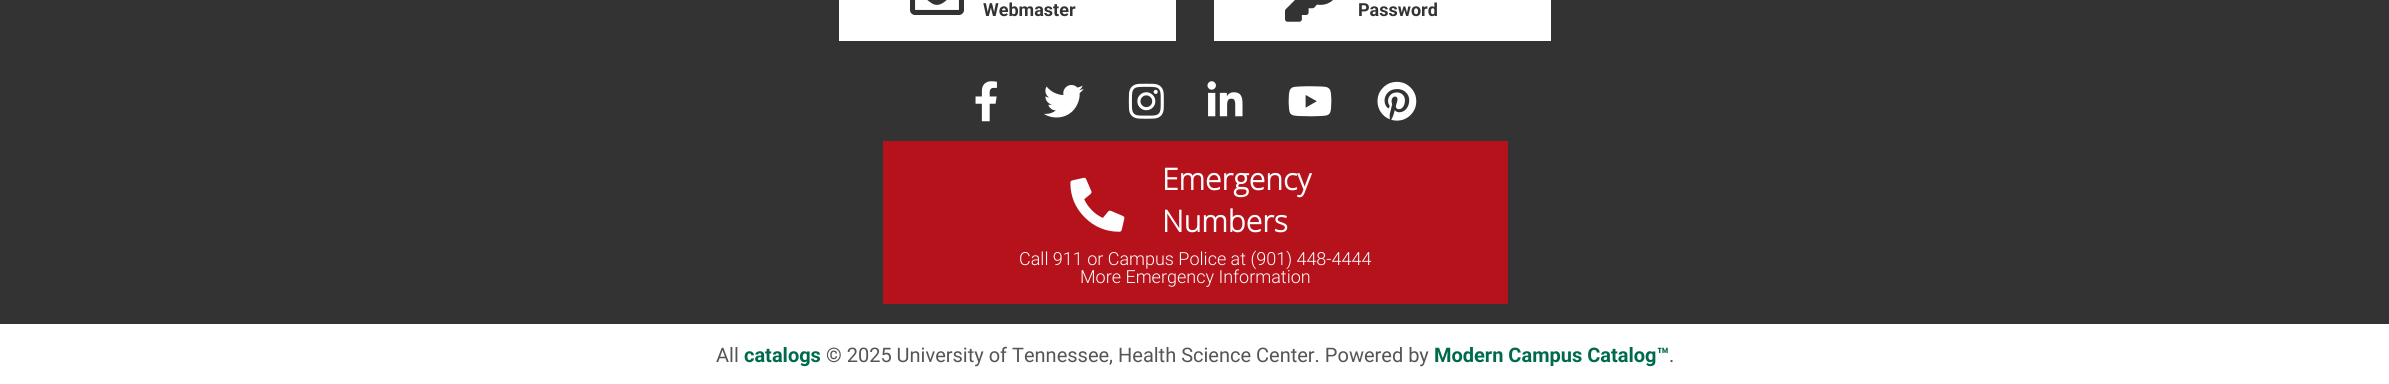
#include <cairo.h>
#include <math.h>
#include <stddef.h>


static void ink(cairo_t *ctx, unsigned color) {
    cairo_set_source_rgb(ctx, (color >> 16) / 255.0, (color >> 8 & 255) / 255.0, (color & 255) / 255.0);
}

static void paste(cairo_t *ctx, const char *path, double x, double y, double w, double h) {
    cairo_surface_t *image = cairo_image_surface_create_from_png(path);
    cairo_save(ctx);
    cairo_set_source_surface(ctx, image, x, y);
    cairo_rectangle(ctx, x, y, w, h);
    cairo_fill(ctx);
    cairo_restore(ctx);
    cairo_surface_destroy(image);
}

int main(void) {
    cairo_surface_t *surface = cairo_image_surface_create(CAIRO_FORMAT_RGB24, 2389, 384);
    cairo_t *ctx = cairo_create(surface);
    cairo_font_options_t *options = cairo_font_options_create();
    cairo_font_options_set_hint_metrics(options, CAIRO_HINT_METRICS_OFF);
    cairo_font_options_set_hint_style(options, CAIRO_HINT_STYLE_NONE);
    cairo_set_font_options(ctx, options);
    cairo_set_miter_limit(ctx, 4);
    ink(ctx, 0xFFFFFF);
    cairo_paint(ctx);
    ink(ctx, 0x333333);
    cairo_rectangle(ctx, 0, 0, 2389, 324);
    cairo_fill(ctx);
    ink(ctx, 0xFFFFFF);
    cairo_rectangle(ctx, 839, 0, 337, 41);
    cairo_fill(ctx);
    paste(ctx, "media/1.png", 910, 0, 54, 15);
    cairo_select_font_face(ctx, "Roboto", CAIRO_FONT_SLANT_NORMAL, CAIRO_FONT_WEIGHT_BOLD);
    cairo_set_font_size(ctx, 18);
    ink(ctx, 0x333333);
    cairo_move_to(ctx, 983, 16);
    cairo_show_text(ctx, "Webmaster");
    ink(ctx, 0xFFFFFF);
    cairo_rectangle(ctx, 1214, 0, 337, 41);
    cairo_fill(ctx);
    paste(ctx, "media/2.png", 1285, 0, 48, 22);
    ink(ctx, 0x333333);
    cairo_move_to(ctx, 1358, 16);
    cairo_show_text(ctx, "Password");
    paste(ctx, "media/3.png", 975, 81, 22, 41);
    paste(ctx, "media/4.png", 1044, 85, 40, 33);
    paste(ctx, "media/5.png", 1128, 83, 36, 36);
    paste(ctx, "media/6.png", 1207, 81, 36, 36);
    paste(ctx, "media/7.png", 1288, 86, 44, 31);
    paste(ctx, "media/8.png", 1377, 81, 40, 40);
    ink(ctx, 0xB5121B);
    cairo_rectangle(ctx, 883, 141, 625, 163);
    cairo_fill(ctx);
    paste(ctx, "media/9.png", 1070, 177, 55, 55);
    cairo_select_font_face(ctx, "Open Sans", CAIRO_FONT_SLANT_NORMAL, CAIRO_FONT_WEIGHT_BOLD);
    cairo_set_font_size(ctx, 30);
    ink(ctx, 0xFEFEFE);
    cairo_move_to(ctx, 1162, 190);
    cairo_show_text(ctx, "Emergency");
    cairo_move_to(ctx, 1162, 232);
    cairo_show_text(ctx, "Numbers");
    cairo_select_font_face(ctx, "Roboto Light", CAIRO_FONT_SLANT_NORMAL, CAIRO_FONT_WEIGHT_NORMAL);
    cairo_set_font_size(ctx, 18);
    cairo_move_to(ctx, 1019, 265);
    cairo_show_text(ctx, "Call 911 or Campus Police at (901) 448-4444");
    cairo_move_to(ctx, 1080, 283);
    cairo_show_text(ctx, "More Emergency Information");
    cairo_select_font_face(ctx, "Roboto", CAIRO_FONT_SLANT_NORMAL, CAIRO_FONT_WEIGHT_NORMAL);
    cairo_set_font_size(ctx, 20);
    ink(ctx, 0x555555);
    cairo_move_to(ctx, 716, 362);
    cairo_show_text(ctx, "All");
    cairo_select_font_face(ctx, "Roboto", CAIRO_FONT_SLANT_NORMAL, CAIRO_FONT_WEIGHT_BOLD);
    ink(ctx, 0x006A4D);
    cairo_move_to(ctx, 744, 362);
    cairo_show_text(ctx, "catalogs");
    cairo_select_font_face(ctx, "Roboto", CAIRO_FONT_SLANT_NORMAL, CAIRO_FONT_WEIGHT_NORMAL);
    ink(ctx, 0x555555);
    cairo_move_to(ctx, 826, 362);
    cairo_show_text(ctx, "© 2025 University of Tennessee, Health Science Center. Powered by");
    cairo_select_font_face(ctx, "Roboto", CAIRO_FONT_SLANT_NORMAL, CAIRO_FONT_WEIGHT_BOLD);
    ink(ctx, 0x006A4D);
    cairo_move_to(ctx, 1434, 362);
    cairo_show_text(ctx, "Modern Campus Catalog™");
    cairo_select_font_face(ctx, "Roboto", CAIRO_FONT_SLANT_NORMAL, CAIRO_FONT_WEIGHT_NORMAL);
    ink(ctx, 0x555555);
    cairo_move_to(ctx, 1669, 362);
    cairo_show_text(ctx, ".");
    cairo_surface_write_to_png(surface, "image.png");
    cairo_font_options_destroy(options);
    cairo_destroy(ctx);
    cairo_surface_destroy(surface);
    return 0;
}
